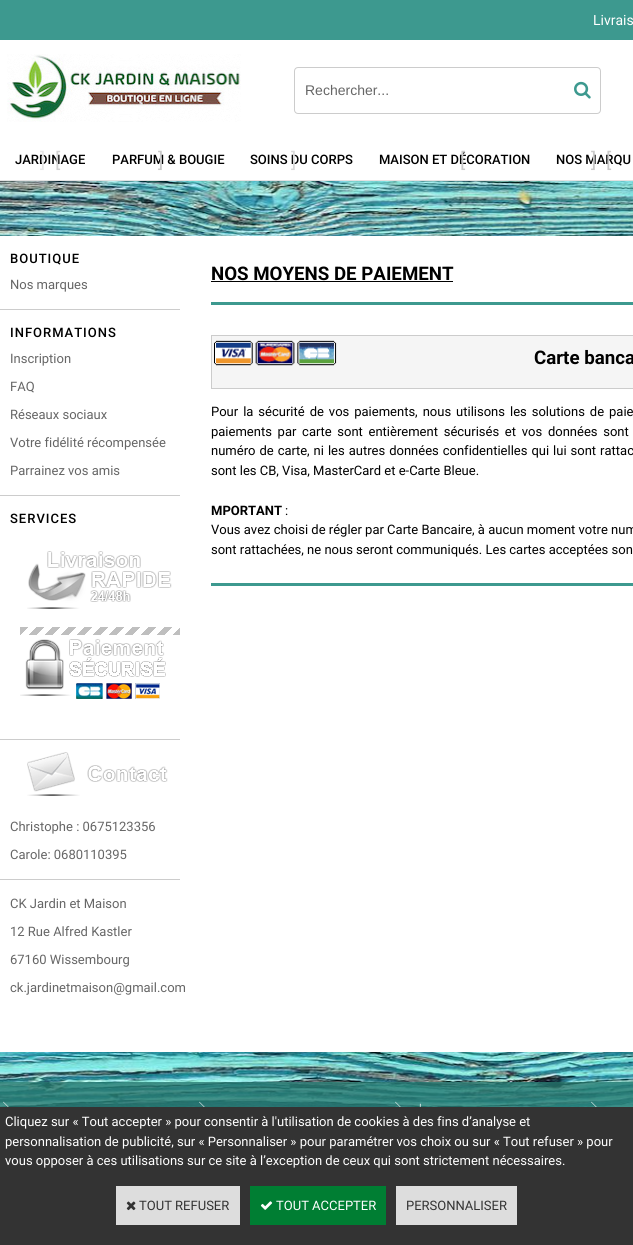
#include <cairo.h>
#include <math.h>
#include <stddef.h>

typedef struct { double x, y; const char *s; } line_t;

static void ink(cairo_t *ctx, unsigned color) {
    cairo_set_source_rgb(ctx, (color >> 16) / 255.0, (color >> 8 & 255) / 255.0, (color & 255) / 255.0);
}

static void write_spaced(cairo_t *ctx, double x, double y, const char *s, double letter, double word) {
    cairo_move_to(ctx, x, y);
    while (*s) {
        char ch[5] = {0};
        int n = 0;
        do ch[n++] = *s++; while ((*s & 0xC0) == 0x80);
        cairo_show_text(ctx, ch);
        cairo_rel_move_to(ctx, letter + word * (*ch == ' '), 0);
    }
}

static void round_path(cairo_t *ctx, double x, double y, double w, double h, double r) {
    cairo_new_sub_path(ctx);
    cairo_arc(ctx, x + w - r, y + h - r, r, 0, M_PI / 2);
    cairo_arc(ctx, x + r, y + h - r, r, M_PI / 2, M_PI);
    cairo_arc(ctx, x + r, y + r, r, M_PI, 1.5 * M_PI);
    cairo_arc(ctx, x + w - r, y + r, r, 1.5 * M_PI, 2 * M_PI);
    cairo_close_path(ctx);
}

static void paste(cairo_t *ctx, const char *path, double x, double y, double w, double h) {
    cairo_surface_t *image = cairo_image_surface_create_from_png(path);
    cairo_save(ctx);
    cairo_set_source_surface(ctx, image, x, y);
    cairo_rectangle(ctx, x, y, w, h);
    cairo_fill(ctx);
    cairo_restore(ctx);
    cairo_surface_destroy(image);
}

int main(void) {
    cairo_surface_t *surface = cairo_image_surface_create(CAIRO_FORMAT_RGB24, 633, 1245);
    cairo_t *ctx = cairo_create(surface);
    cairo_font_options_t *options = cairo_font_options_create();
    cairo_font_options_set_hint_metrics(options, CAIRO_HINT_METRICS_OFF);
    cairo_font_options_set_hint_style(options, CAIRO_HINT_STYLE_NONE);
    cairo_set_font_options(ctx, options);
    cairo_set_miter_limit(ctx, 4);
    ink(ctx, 0xFFFFFF);
    cairo_paint(ctx);
    paste(ctx, "media/1.png", 0, 181, 633, 55);
    paste(ctx, "media/2.png", 0, 1052, 633, 55);
    ink(ctx, 0x3D998F);
    cairo_rectangle(ctx, 0, 0, 633, 40);
    cairo_fill(ctx);
    ink(ctx, 0xE2E2E2);
    cairo_rectangle(ctx, 0, 180, 633, 1);
    cairo_fill(ctx);
    cairo_select_font_face(ctx, "Roboto", CAIRO_FONT_SLANT_NORMAL, CAIRO_FONT_WEIGHT_NORMAL);
    cairo_set_font_size(ctx, 14);
    ink(ctx, 0xFFFFFF);
    cairo_move_to(ctx, 593, 25);
    cairo_show_text(ctx, "Livrais");
    paste(ctx, "media/3.png", 7, 54, 234, 68);
    round_path(ctx, 294.5, 67.5, 306, 46, 3.5);
    ink(ctx, 0xCCCCCC);
    cairo_set_line_width(ctx, 1);
    cairo_stroke(ctx);
    cairo_select_font_face(ctx, "Liberation Sans", CAIRO_FONT_SLANT_NORMAL, CAIRO_FONT_WEIGHT_NORMAL);
    ink(ctx, 0x666666);
    cairo_move_to(ctx, 305, 95);
    cairo_show_text(ctx, "Rechercher...");
    paste(ctx, "media/4.png", 574, 81, 17, 18);
    cairo_select_font_face(ctx, "Roboto Medium", CAIRO_FONT_SLANT_NORMAL, CAIRO_FONT_WEIGHT_NORMAL);
    cairo_set_font_size(ctx, 13);
    ink(ctx, 0x000000);
    cairo_move_to(ctx, 15, 164);
    cairo_show_text(ctx, "JARDINAGE");
    cairo_select_font_face(ctx, "Roboto", CAIRO_FONT_SLANT_NORMAL, CAIRO_FONT_WEIGHT_NORMAL);
    cairo_set_font_size(ctx, 20);
    ink(ctx, 0xE7E7E7);
    cairo_move_to(ctx, 40, 167);
    cairo_show_text(ctx, "]");
    ink(ctx, 0xD2D2D2);
    cairo_move_to(ctx, 55, 167);
    cairo_show_text(ctx, "[");
    cairo_select_font_face(ctx, "Roboto Medium", CAIRO_FONT_SLANT_NORMAL, CAIRO_FONT_WEIGHT_NORMAL);
    cairo_set_font_size(ctx, 13);
    ink(ctx, 0x000000);
    cairo_move_to(ctx, 112, 164);
    cairo_show_text(ctx, "PARFUM & BOUGIE");
    cairo_select_font_face(ctx, "Roboto", CAIRO_FONT_SLANT_NORMAL, CAIRO_FONT_WEIGHT_NORMAL);
    cairo_set_font_size(ctx, 20);
    ink(ctx, 0xCACACA);
    cairo_move_to(ctx, 158, 167);
    cairo_show_text(ctx, "]");
    cairo_select_font_face(ctx, "Roboto Medium", CAIRO_FONT_SLANT_NORMAL, CAIRO_FONT_WEIGHT_NORMAL);
    cairo_set_font_size(ctx, 13);
    ink(ctx, 0x000000);
    cairo_move_to(ctx, 250, 164);
    cairo_show_text(ctx, "SOINS DU CORPS");
    cairo_select_font_face(ctx, "Roboto", CAIRO_FONT_SLANT_NORMAL, CAIRO_FONT_WEIGHT_NORMAL);
    cairo_set_font_size(ctx, 20);
    ink(ctx, 0xD9D9D9);
    cairo_move_to(ctx, 291, 167);
    cairo_show_text(ctx, "]");
    cairo_select_font_face(ctx, "Roboto Medium", CAIRO_FONT_SLANT_NORMAL, CAIRO_FONT_WEIGHT_NORMAL);
    cairo_set_font_size(ctx, 13);
    ink(ctx, 0x000000);
    cairo_move_to(ctx, 379, 164);
    cairo_show_text(ctx, "MAISON ET DÉCORATION");
    cairo_select_font_face(ctx, "Roboto", CAIRO_FONT_SLANT_NORMAL, CAIRO_FONT_WEIGHT_NORMAL);
    cairo_set_font_size(ctx, 20);
    ink(ctx, 0xCACACA);
    cairo_move_to(ctx, 460, 167);
    cairo_show_text(ctx, "[");
    cairo_select_font_face(ctx, "Roboto Medium", CAIRO_FONT_SLANT_NORMAL, CAIRO_FONT_WEIGHT_NORMAL);
    cairo_set_font_size(ctx, 13);
    ink(ctx, 0x000000);
    cairo_move_to(ctx, 556, 164);
    cairo_show_text(ctx, "NOS MARQU");
    cairo_select_font_face(ctx, "Roboto", CAIRO_FONT_SLANT_NORMAL, CAIRO_FONT_WEIGHT_NORMAL);
    cairo_set_font_size(ctx, 20);
    ink(ctx, 0xCACACA);
    cairo_move_to(ctx, 591, 167);
    cairo_show_text(ctx, "]");
    cairo_move_to(ctx, 606, 167);
    cairo_show_text(ctx, "[");
    cairo_select_font_face(ctx, "Roboto Medium", CAIRO_FONT_SLANT_NORMAL, CAIRO_FONT_WEIGHT_NORMAL);
    cairo_set_font_size(ctx, 13);
    ink(ctx, 0x000000);
    write_spaced(ctx, 10, 263, "BOUTIQUE", 1, 0);
    cairo_select_font_face(ctx, "Roboto", CAIRO_FONT_SLANT_NORMAL, CAIRO_FONT_WEIGHT_NORMAL);
    ink(ctx, 0x666666);
    cairo_move_to(ctx, 10, 289);
    cairo_show_text(ctx, "Nos marques");
    ink(ctx, 0xCCCCCC);
    cairo_rectangle(ctx, 0, 309, 180, 1);
    cairo_fill(ctx);
    cairo_select_font_face(ctx, "Roboto Medium", CAIRO_FONT_SLANT_NORMAL, CAIRO_FONT_WEIGHT_NORMAL);
    ink(ctx, 0x000000);
    write_spaced(ctx, 10, 337, "INFORMATIONS", 1, 0);
    cairo_select_font_face(ctx, "Roboto", CAIRO_FONT_SLANT_NORMAL, CAIRO_FONT_WEIGHT_NORMAL);
    ink(ctx, 0x666666);
    {
        static const line_t items[] = {
            {10, 363, "Inscription"},
            {10, 391, "FAQ"},
            {10, 419, "Réseaux sociaux"},
            {10, 447, "Votre fidélité récompensée"},
            {10, 475, "Parrainez vos amis"},
        };
        for (size_t i = 0; i < sizeof items / sizeof *items; i++) {
            cairo_move_to(ctx, items[i].x, items[i].y);
            cairo_show_text(ctx, items[i].s);
        }
    }
    ink(ctx, 0xCCCCCC);
    cairo_rectangle(ctx, 0, 495, 180, 1);
    cairo_fill(ctx);
    cairo_select_font_face(ctx, "Roboto Medium", CAIRO_FONT_SLANT_NORMAL, CAIRO_FONT_WEIGHT_NORMAL);
    ink(ctx, 0x000000);
    write_spaced(ctx, 10, 523, "SERVICES", 1, 0);
    paste(ctx, "media/5.png", 27, 551, 145, 58);
    paste(ctx, "media/6.png", 20, 627, 160, 72);
    ink(ctx, 0xCCCCCC);
    cairo_rectangle(ctx, 0, 739, 180, 1);
    cairo_fill(ctx);
    paste(ctx, "media/7.png", 27, 752, 141, 44);
    cairo_select_font_face(ctx, "Roboto", CAIRO_FONT_SLANT_NORMAL, CAIRO_FONT_WEIGHT_NORMAL);
    ink(ctx, 0x666666);
    cairo_move_to(ctx, 10, 831);
    cairo_show_text(ctx, "Christophe : 0675123356");
    cairo_move_to(ctx, 10, 859);
    cairo_show_text(ctx, "Carole: 0680110395");
    ink(ctx, 0xCCCCCC);
    cairo_rectangle(ctx, 0, 879, 180, 1);
    cairo_fill(ctx);
    ink(ctx, 0x666666);
    {
        static const line_t items[] = {
            {10, 908, "CK Jardin et Maison"},
            {10, 936, "12 Rue Alfred Kastler"},
            {10, 964, "67160 Wissembourg"},
            {10, 992, "ck.jardinetmaison@gmail.com"},
        };
        for (size_t i = 0; i < sizeof items / sizeof *items; i++) {
            cairo_move_to(ctx, items[i].x, items[i].y);
            cairo_show_text(ctx, items[i].s);
        }
    }
    cairo_select_font_face(ctx, "Roboto", CAIRO_FONT_SLANT_NORMAL, CAIRO_FONT_WEIGHT_BOLD);
    cairo_set_font_size(ctx, 18.7);
    ink(ctx, 0x000000);
    cairo_move_to(ctx, 211, 280);
    cairo_show_text(ctx, "NOS MOYENS DE PAIEMENT");
    cairo_rectangle(ctx, 211, 281, 242, 1);
    cairo_fill(ctx);
    ink(ctx, 0x3D998F);
    cairo_rectangle(ctx, 211, 302, 422, 3);
    cairo_fill(ctx);
    ink(ctx, 0xF5F5F5);
    cairo_rectangle(ctx, 211.5, 335.5, 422, 53);
    cairo_fill_preserve(ctx);
    ink(ctx, 0xCCCCCC);
    cairo_stroke(ctx);
    paste(ctx, "media/8.png", 214, 340, 123, 26);
    ink(ctx, 0x000000);
    cairo_move_to(ctx, 534, 364);
    cairo_show_text(ctx, "Carte banca");
    cairo_select_font_face(ctx, "Roboto", CAIRO_FONT_SLANT_NORMAL, CAIRO_FONT_WEIGHT_NORMAL);
    cairo_set_font_size(ctx, 13);
    write_spaced(ctx, 211, 416, "Pour la sécurité de vos paiements, nous utilisons les solutions de paie", 0, 1.75);
    write_spaced(ctx, 211, 436, "paiements par carte sont entièrement sécurisés et vos données sont", 0, 2.5);
    write_spaced(ctx, 211, 455, "numéro de carte, ni les autres données confidentielles qui lui sont rattac", 0, 0.75);
    cairo_move_to(ctx, 211, 475);
    cairo_show_text(ctx, "sont les CB, Visa, MasterCard et e-Carte Bleue.");
    cairo_select_font_face(ctx, "Roboto", CAIRO_FONT_SLANT_NORMAL, CAIRO_FONT_WEIGHT_BOLD);
    cairo_move_to(ctx, 211, 515);
    cairo_show_text(ctx, "MPORTANT");
    cairo_select_font_face(ctx, "Roboto", CAIRO_FONT_SLANT_NORMAL, CAIRO_FONT_WEIGHT_NORMAL);
    {
        static const line_t items[] = {
            {285, 515, ":"},
            {211, 534, "Vous avez choisi de régler par Carte Bancaire, à aucun moment votre num"},
            {211, 554, "sont rattachées, ne nous seront communiqués. Les cartes acceptées son"},
        };
        for (size_t i = 0; i < sizeof items / sizeof *items; i++) {
            cairo_move_to(ctx, items[i].x, items[i].y);
            cairo_show_text(ctx, items[i].s);
        }
    }
    ink(ctx, 0x3D998F);
    cairo_rectangle(ctx, 211, 583, 422, 3);
    cairo_fill(ctx);
    cairo_set_source_rgba(ctx, 0.157, 0.482, 0.447, 0.8);
    cairo_rectangle(ctx, 0, 1082, 633, 25);
    cairo_fill(ctx);
    paste(ctx, "media/9.png", 3, 1101, 6, 6);
    paste(ctx, "media/10.png", 199, 1101, 6, 6);
    paste(ctx, "media/11.png", 395, 1101, 6, 6);
    cairo_select_font_face(ctx, "Roboto Light", CAIRO_FONT_SLANT_NORMAL, CAIRO_FONT_WEIGHT_NORMAL);
    cairo_set_font_size(ctx, 15);
    ink(ctx, 0xFFFFFF);
    write_spaced(ctx, 419, 1115, "'", 1, 0);
    paste(ctx, "media/12.png", 591, 1101, 6, 6);
    ink(ctx, 0x333333);
    cairo_rectangle(ctx, 0, 1107, 633, 138);
    cairo_fill(ctx);
    cairo_select_font_face(ctx, "Roboto", CAIRO_FONT_SLANT_NORMAL, CAIRO_FONT_WEIGHT_NORMAL);
    cairo_set_font_size(ctx, 13);
    ink(ctx, 0xFFFFFF);
    {
        static const line_t items[] = {
            {5, 1126, "Cliquez sur « Tout accepter » pour consentir à l'utilisation de cookies à des fins d’analyse et"},
            {5, 1146, "personnalisation de publicité, sur « Personnaliser » pour paramétrer vos choix ou sur « Tout refuser » pour"},
            {5, 1165, "vous opposer à ces utilisations sur ce site à l’exception de ceux qui sont strictement nécessaires."},
        };
        for (size_t i = 0; i < sizeof items / sizeof *items; i++) {
            cairo_move_to(ctx, items[i].x, items[i].y);
            cairo_show_text(ctx, items[i].s);
        }
    }
    ink(ctx, 0xDDDDDD);
    cairo_rectangle(ctx, 116, 1186, 124, 39);
    cairo_fill(ctx);
    paste(ctx, "media/13.png", 126, 1201, 10, 10);
    ink(ctx, 0x333333);
    cairo_move_to(ctx, 139, 1210);
    cairo_show_text(ctx, "TOUT REFUSER");
    ink(ctx, 0x007E33);
    cairo_rectangle(ctx, 250, 1186, 136, 39);
    cairo_fill(ctx);
    paste(ctx, "media/14.png", 260, 1201, 13, 9);
    ink(ctx, 0xFFFFFF);
    cairo_move_to(ctx, 276, 1210);
    cairo_show_text(ctx, "TOUT ACCEPTER");
    ink(ctx, 0xDDDDDD);
    cairo_rectangle(ctx, 396, 1186, 121, 39);
    cairo_fill(ctx);
    ink(ctx, 0x333333);
    cairo_move_to(ctx, 406, 1210);
    cairo_show_text(ctx, "PERSONNALISER");
    cairo_surface_write_to_png(surface, "image.png");
    cairo_font_options_destroy(options);
    cairo_destroy(ctx);
    cairo_surface_destroy(surface);
    return 0;
}
